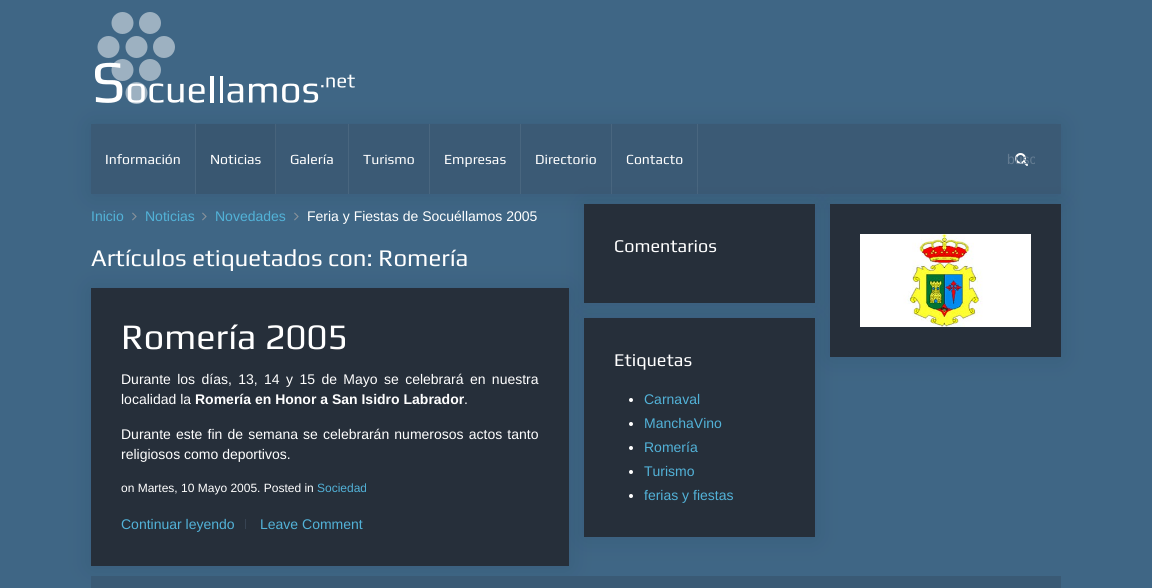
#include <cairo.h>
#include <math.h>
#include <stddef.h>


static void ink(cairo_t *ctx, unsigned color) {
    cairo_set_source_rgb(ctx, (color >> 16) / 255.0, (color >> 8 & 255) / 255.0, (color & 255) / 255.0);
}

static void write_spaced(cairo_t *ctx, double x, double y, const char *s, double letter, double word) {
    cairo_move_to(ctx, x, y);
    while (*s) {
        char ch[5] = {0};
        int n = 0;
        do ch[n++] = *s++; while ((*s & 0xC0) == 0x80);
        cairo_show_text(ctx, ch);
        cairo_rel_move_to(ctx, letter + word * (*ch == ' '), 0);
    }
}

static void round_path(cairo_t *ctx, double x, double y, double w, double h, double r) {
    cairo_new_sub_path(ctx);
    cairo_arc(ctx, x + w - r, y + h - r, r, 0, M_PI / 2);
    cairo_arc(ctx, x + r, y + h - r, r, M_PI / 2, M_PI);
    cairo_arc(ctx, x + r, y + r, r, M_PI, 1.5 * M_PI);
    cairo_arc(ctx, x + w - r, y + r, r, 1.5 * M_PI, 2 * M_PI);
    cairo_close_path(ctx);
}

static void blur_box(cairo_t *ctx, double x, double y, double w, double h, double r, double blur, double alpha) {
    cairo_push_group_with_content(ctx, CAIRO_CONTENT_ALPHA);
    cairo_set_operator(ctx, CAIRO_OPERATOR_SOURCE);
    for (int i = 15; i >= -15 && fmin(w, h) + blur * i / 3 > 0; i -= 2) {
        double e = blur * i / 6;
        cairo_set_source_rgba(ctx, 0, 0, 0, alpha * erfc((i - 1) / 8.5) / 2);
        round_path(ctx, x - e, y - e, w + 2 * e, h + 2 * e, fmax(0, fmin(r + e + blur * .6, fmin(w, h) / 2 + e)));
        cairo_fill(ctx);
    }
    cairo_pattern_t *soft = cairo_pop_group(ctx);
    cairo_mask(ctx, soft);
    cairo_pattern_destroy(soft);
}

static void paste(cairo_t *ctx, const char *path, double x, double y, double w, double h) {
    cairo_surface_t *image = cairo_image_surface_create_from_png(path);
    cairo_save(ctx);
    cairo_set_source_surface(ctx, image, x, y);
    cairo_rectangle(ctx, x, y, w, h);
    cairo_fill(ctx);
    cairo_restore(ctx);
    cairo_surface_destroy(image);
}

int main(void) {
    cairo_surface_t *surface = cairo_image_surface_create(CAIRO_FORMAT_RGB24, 1152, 588);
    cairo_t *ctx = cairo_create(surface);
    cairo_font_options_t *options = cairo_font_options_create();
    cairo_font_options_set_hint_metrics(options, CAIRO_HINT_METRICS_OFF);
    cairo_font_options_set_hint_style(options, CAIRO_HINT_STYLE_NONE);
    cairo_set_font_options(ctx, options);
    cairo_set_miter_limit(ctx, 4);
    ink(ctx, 0x3F6685);
    cairo_paint(ctx);
    ink(ctx, 0x0A142D);
    blur_box(ctx, 91, 125, 970, 70, 0, 12.5, 0.12);
    paste(ctx, "media/1.png", 95, 12, 260, 92);
    ink(ctx, 0x3B5A75);
    cairo_rectangle(ctx, 91, 124, 970, 70);
    cairo_fill(ctx);
    ink(ctx, 0x49667F);
    cairo_rectangle(ctx, 195, 124, 1, 70);
    cairo_fill(ctx);
    cairo_select_font_face(ctx, "Play", CAIRO_FONT_SLANT_NORMAL, CAIRO_FONT_WEIGHT_NORMAL);
    cairo_set_font_size(ctx, 14);
    ink(ctx, 0xFFFFFF);
    cairo_move_to(ctx, 105, 164);
    cairo_show_text(ctx, "Información");
    ink(ctx, 0x395771);
    cairo_rectangle(ctx, 196, 124, 79, 70);
    cairo_fill(ctx);
    ink(ctx, 0x47637B);
    cairo_rectangle(ctx, 275, 124, 1, 70);
    cairo_fill(ctx);
    ink(ctx, 0xFFFFFF);
    cairo_move_to(ctx, 210, 164);
    cairo_show_text(ctx, "Noticias");
    ink(ctx, 0x49667F);
    cairo_rectangle(ctx, 348, 124, 1, 70);
    cairo_fill(ctx);
    ink(ctx, 0xFFFFFF);
    cairo_move_to(ctx, 290, 164);
    cairo_show_text(ctx, "Galería");
    ink(ctx, 0x49667F);
    cairo_rectangle(ctx, 429, 124, 1, 70);
    cairo_fill(ctx);
    ink(ctx, 0xFFFFFF);
    cairo_move_to(ctx, 363, 164);
    cairo_show_text(ctx, "Turismo");
    ink(ctx, 0x49667F);
    cairo_rectangle(ctx, 520, 124, 1, 70);
    cairo_fill(ctx);
    ink(ctx, 0xFFFFFF);
    cairo_move_to(ctx, 444, 164);
    cairo_show_text(ctx, "Empresas");
    ink(ctx, 0x49667F);
    cairo_rectangle(ctx, 611, 124, 1, 70);
    cairo_fill(ctx);
    ink(ctx, 0xFFFFFF);
    cairo_move_to(ctx, 535, 164);
    cairo_show_text(ctx, "Directorio");
    ink(ctx, 0x49667F);
    cairo_rectangle(ctx, 697, 124, 1, 70);
    cairo_fill(ctx);
    ink(ctx, 0xFFFFFF);
    cairo_move_to(ctx, 626, 164);
    cairo_show_text(ctx, "Contacto");
    paste(ctx, "media/2.png", 1015, 153, 13, 13);
    cairo_save(ctx);
    cairo_rectangle(ctx, 1007, 151, 28, 16);
    cairo_clip(ctx);
    cairo_select_font_face(ctx, "Liberation Sans", CAIRO_FONT_SLANT_NORMAL, CAIRO_FONT_WEIGHT_NORMAL);
    ink(ctx, 0x637B91);
    cairo_move_to(ctx, 1007, 164);
    cairo_show_text(ctx, "busc");
    cairo_restore(ctx);
    cairo_select_font_face(ctx, "Liberation Sans", CAIRO_FONT_SLANT_NORMAL, CAIRO_FONT_WEIGHT_NORMAL);
    ink(ctx, 0x52B2D8);
    cairo_move_to(ctx, 91, 221);
    cairo_show_text(ctx, "Inicio");
    paste(ctx, "media/3.png", 132, 212, 5, 9);
    cairo_move_to(ctx, 145, 221);
    cairo_show_text(ctx, "Noticias");
    paste(ctx, "media/3.png", 202, 212, 5, 9);
    cairo_move_to(ctx, 215, 221);
    cairo_show_text(ctx, "Novedades");
    paste(ctx, "media/3.png", 294, 212, 5, 9);
    ink(ctx, 0xFFFFFF);
    cairo_move_to(ctx, 307, 221);
    cairo_show_text(ctx, "Feria y Fiestas de Socuéllamos 2005");
    ink(ctx, 0x0A142D);
    blur_box(ctx, 91, 289, 478, 278, 0, 12.5, 0.12);
    cairo_select_font_face(ctx, "Play", CAIRO_FONT_SLANT_NORMAL, CAIRO_FONT_WEIGHT_NORMAL);
    cairo_set_font_size(ctx, 24);
    ink(ctx, 0xFFFFFF);
    cairo_move_to(ctx, 91, 266);
    cairo_show_text(ctx, "Artículos etiquetados con: Romería");
    ink(ctx, 0x262F3A);
    cairo_rectangle(ctx, 91, 288, 478, 278);
    cairo_fill(ctx);
    cairo_set_font_size(ctx, 36);
    ink(ctx, 0xFFFFFF);
    cairo_move_to(ctx, 121, 349);
    cairo_show_text(ctx, "Romería 2005");
    cairo_select_font_face(ctx, "Liberation Sans", CAIRO_FONT_SLANT_NORMAL, CAIRO_FONT_WEIGHT_NORMAL);
    cairo_set_font_size(ctx, 14);
    write_spaced(ctx, 121, 384, "Durante los días, 13, 14 y 15 de Mayo se celebrará en nuestra", 0, 2.5);
    cairo_move_to(ctx, 121, 404);
    cairo_show_text(ctx, "localidad la");
    cairo_select_font_face(ctx, "Liberation Sans", CAIRO_FONT_SLANT_NORMAL, CAIRO_FONT_WEIGHT_BOLD);
    cairo_move_to(ctx, 195, 404);
    cairo_show_text(ctx, "Romería en Honor a San Isidro Labrador");
    cairo_select_font_face(ctx, "Liberation Sans", CAIRO_FONT_SLANT_NORMAL, CAIRO_FONT_WEIGHT_NORMAL);
    cairo_move_to(ctx, 464, 404);
    cairo_show_text(ctx, ".");
    write_spaced(ctx, 121, 439, "Durante este fin de semana se celebrarán numerosos actos tanto", 0, 1.25);
    cairo_move_to(ctx, 121, 459);
    cairo_show_text(ctx, "religiosos como deportivos.");
    cairo_set_font_size(ctx, 12);
    cairo_move_to(ctx, 121, 492);
    cairo_show_text(ctx, "on Martes, 10 Mayo 2005. Posted in");
    ink(ctx, 0x52B2D8);
    cairo_move_to(ctx, 317, 492);
    cairo_show_text(ctx, "Sociedad");
    cairo_set_font_size(ctx, 14);
    cairo_move_to(ctx, 121, 529);
    cairo_show_text(ctx, "Continuar leyendo");
    ink(ctx, 0x374352);
    cairo_rectangle(ctx, 245, 519, 1, 10);
    cairo_fill(ctx);
    ink(ctx, 0x52B2D8);
    cairo_move_to(ctx, 260, 529);
    cairo_show_text(ctx, "Leave Comment");
    ink(ctx, 0x0A142D);
    blur_box(ctx, 584, 205, 231, 99, 0, 12.5, 0.12);
    ink(ctx, 0x262F3A);
    cairo_rectangle(ctx, 584, 204, 231, 99);
    cairo_fill(ctx);
    cairo_select_font_face(ctx, "Play", CAIRO_FONT_SLANT_NORMAL, CAIRO_FONT_WEIGHT_NORMAL);
    cairo_set_font_size(ctx, 18);
    ink(ctx, 0xFFFFFF);
    cairo_move_to(ctx, 614, 252);
    cairo_show_text(ctx, "Comentarios");
    ink(ctx, 0x0A142D);
    blur_box(ctx, 584, 319, 231, 219, 0, 12.5, 0.12);
    ink(ctx, 0x262F3A);
    cairo_rectangle(ctx, 584, 318, 231, 219);
    cairo_fill(ctx);
    ink(ctx, 0xFFFFFF);
    cairo_move_to(ctx, 614, 366);
    cairo_show_text(ctx, "Etiquetas");
    cairo_new_path(ctx);
    cairo_arc(ctx, 631, 400, 2, 0, 2 * M_PI);
    cairo_fill(ctx);
    cairo_select_font_face(ctx, "Liberation Sans", CAIRO_FONT_SLANT_NORMAL, CAIRO_FONT_WEIGHT_NORMAL);
    cairo_set_font_size(ctx, 14);
    ink(ctx, 0x52B2D8);
    cairo_move_to(ctx, 644, 404);
    cairo_show_text(ctx, "Carnaval");
    ink(ctx, 0xFFFFFF);
    cairo_new_path(ctx);
    cairo_arc(ctx, 631, 424, 2, 0, 2 * M_PI);
    cairo_fill(ctx);
    ink(ctx, 0x52B2D8);
    cairo_move_to(ctx, 644, 428);
    cairo_show_text(ctx, "ManchaVino");
    ink(ctx, 0xFFFFFF);
    cairo_new_path(ctx);
    cairo_arc(ctx, 631, 448, 2, 0, 2 * M_PI);
    cairo_fill(ctx);
    ink(ctx, 0x52B2D8);
    cairo_move_to(ctx, 644, 452);
    cairo_show_text(ctx, "Romería");
    ink(ctx, 0xFFFFFF);
    cairo_new_path(ctx);
    cairo_arc(ctx, 631, 472, 2, 0, 2 * M_PI);
    cairo_fill(ctx);
    ink(ctx, 0x52B2D8);
    cairo_move_to(ctx, 644, 476);
    cairo_show_text(ctx, "Turismo");
    ink(ctx, 0xFFFFFF);
    cairo_new_path(ctx);
    cairo_arc(ctx, 631, 496, 2, 0, 2 * M_PI);
    cairo_fill(ctx);
    ink(ctx, 0x52B2D8);
    cairo_move_to(ctx, 644, 500);
    cairo_show_text(ctx, "ferias y fiestas");
    ink(ctx, 0x0A142D);
    blur_box(ctx, 830, 205, 231, 153, 0, 12.5, 0.12);
    ink(ctx, 0x262F3A);
    cairo_rectangle(ctx, 830, 204, 231, 153);
    cairo_fill(ctx);
    paste(ctx, "media/4.png", 860, 234, 171, 93);
    ink(ctx, 0x3A5A75);
    cairo_rectangle(ctx, 91, 576, 970, 12);
    cairo_fill(ctx);
    cairo_surface_write_to_png(surface, "image.png");
    cairo_font_options_destroy(options);
    cairo_destroy(ctx);
    cairo_surface_destroy(surface);
    return 0;
}
